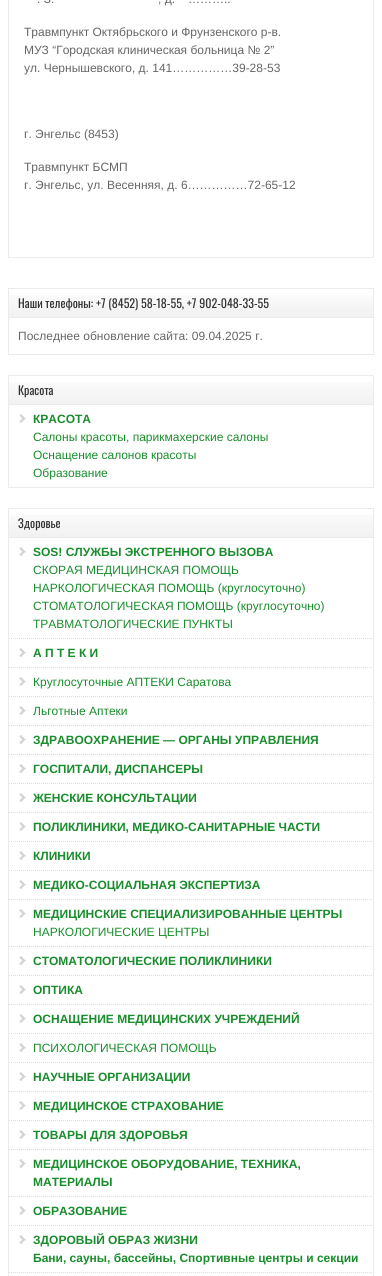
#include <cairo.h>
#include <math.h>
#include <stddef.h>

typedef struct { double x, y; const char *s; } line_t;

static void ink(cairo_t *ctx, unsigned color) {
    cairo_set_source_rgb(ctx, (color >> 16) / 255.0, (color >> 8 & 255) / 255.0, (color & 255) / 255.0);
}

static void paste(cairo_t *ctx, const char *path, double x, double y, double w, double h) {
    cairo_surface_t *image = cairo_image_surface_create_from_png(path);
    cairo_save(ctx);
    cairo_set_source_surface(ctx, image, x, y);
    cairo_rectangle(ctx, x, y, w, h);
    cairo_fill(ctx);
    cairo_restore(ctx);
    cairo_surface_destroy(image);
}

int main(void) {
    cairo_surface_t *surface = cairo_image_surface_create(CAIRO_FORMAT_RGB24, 382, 1276);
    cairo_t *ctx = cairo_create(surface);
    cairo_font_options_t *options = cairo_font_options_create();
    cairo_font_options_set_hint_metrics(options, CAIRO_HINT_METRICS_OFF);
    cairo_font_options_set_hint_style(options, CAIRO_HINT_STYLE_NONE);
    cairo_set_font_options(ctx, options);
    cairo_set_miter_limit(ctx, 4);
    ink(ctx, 0xFFFFFF);
    cairo_paint(ctx);
    cairo_rectangle(ctx, 8.5, -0.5, 365, 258);
    ink(ctx, 0xEBEBEB);
    cairo_set_line_width(ctx, 1);
    cairo_stroke(ctx);
    cairo_select_font_face(ctx, "Liberation Sans", CAIRO_FONT_SLANT_NORMAL, CAIRO_FONT_WEIGHT_NORMAL);
    cairo_set_font_size(ctx, 12);
    ink(ctx, 0x666666);
    {
        static const line_t items[] = {
            {37, 3, ". З."},
            {158, 3, ", д."},
            {188, 3, "……….."},
            {24, 36, "Tравмпункт Октябрьского и Фрунзенского р-в."},
            {24, 54, "МУЗ “Городская клиническая больница № 2”"},
            {24, 72, "ул. Чернышевского, д. 141……………39-28-53"},
            {24, 138, "г. Энгельс (8453)"},
            {24, 171, "Tравмпункт БСМП"},
            {24, 189, "г. Энгельс, ул. Весенняя, д. 6……………72-65-12"},
        };
        for (size_t i = 0; i < sizeof items / sizeof *items; i++) {
            cairo_move_to(ctx, items[i].x, items[i].y);
            cairo_show_text(ctx, items[i].s);
        }
    }
    cairo_rectangle(ctx, 8.5, 288.5, 365, 66);
    ink(ctx, 0xEBEBEB);
    cairo_stroke(ctx);
    paste(ctx, "media/1.png", 9, 295, 364, 22);
    cairo_rectangle(ctx, 9, 317, 364, 1);
    cairo_fill(ctx);
    cairo_select_font_face(ctx, "Oswald", CAIRO_FONT_SLANT_NORMAL, CAIRO_FONT_WEIGHT_NORMAL);
    ink(ctx, 0x333333);
    cairo_move_to(ctx, 18, 308);
    cairo_show_text(ctx, "Наши телефоны: +7 (8452) 58-18-55, +7 902-048-33-55");
    cairo_select_font_face(ctx, "Liberation Sans", CAIRO_FONT_SLANT_NORMAL, CAIRO_FONT_WEIGHT_NORMAL);
    ink(ctx, 0x666666);
    cairo_move_to(ctx, 18, 340);
    cairo_show_text(ctx, "Последнее обновление сайта: 09.04.2025 г.");
    cairo_rectangle(ctx, 8.5, 375.5, 365, 112);
    ink(ctx, 0xEBEBEB);
    cairo_stroke(ctx);
    paste(ctx, "media/1.png", 9, 382, 364, 22);
    cairo_rectangle(ctx, 9, 404, 364, 1);
    cairo_fill(ctx);
    cairo_select_font_face(ctx, "Oswald", CAIRO_FONT_SLANT_NORMAL, CAIRO_FONT_WEIGHT_NORMAL);
    ink(ctx, 0x333333);
    cairo_move_to(ctx, 18, 395);
    cairo_show_text(ctx, "Красота");
    paste(ctx, "media/2.png", 19, 414, 7, 9);
    cairo_select_font_face(ctx, "Liberation Sans", CAIRO_FONT_SLANT_NORMAL, CAIRO_FONT_WEIGHT_BOLD);
    ink(ctx, 0x198C2C);
    cairo_move_to(ctx, 33, 423);
    cairo_show_text(ctx, "КРАСОТА");
    cairo_select_font_face(ctx, "Liberation Sans", CAIRO_FONT_SLANT_NORMAL, CAIRO_FONT_WEIGHT_NORMAL);
    {
        static const line_t items[] = {
            {33, 441, "Салоны красоты, парикмахерские салоны"},
            {33, 459, "Оснащение салонов красоты"},
            {33, 477, "Образование"},
        };
        for (size_t i = 0; i < sizeof items / sizeof *items; i++) {
            cairo_move_to(ctx, items[i].x, items[i].y);
            cairo_show_text(ctx, items[i].s);
        }
    }
    cairo_rectangle(ctx, 8.5, 508.5, 365, 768);
    ink(ctx, 0xEBEBEB);
    cairo_stroke(ctx);
    paste(ctx, "media/1.png", 9, 515, 364, 22);
    cairo_rectangle(ctx, 9, 537, 364, 1);
    cairo_fill(ctx);
    cairo_select_font_face(ctx, "Oswald", CAIRO_FONT_SLANT_NORMAL, CAIRO_FONT_WEIGHT_NORMAL);
    ink(ctx, 0x333333);
    cairo_move_to(ctx, 18, 528);
    cairo_show_text(ctx, "Здоровье");
    paste(ctx, "media/2.png", 19, 547, 7, 9);
    cairo_new_path(ctx);
    cairo_move_to(ctx, 9, 638.5);
    cairo_line_to(ctx, 373, 638.5);
    ink(ctx, 0xDDDDDD);
    cairo_set_dash(ctx, (double[]){1, 1}, 2, 0);
    cairo_stroke(ctx);
    cairo_select_font_face(ctx, "Liberation Sans", CAIRO_FONT_SLANT_NORMAL, CAIRO_FONT_WEIGHT_BOLD);
    ink(ctx, 0x198C2C);
    cairo_move_to(ctx, 33, 556);
    cairo_show_text(ctx, "SOS! СЛУЖБЫ ЭКСТРЕННОГО ВЫЗОВА");
    cairo_select_font_face(ctx, "Liberation Sans", CAIRO_FONT_SLANT_NORMAL, CAIRO_FONT_WEIGHT_NORMAL);
    {
        static const line_t items[] = {
            {33, 574, "СКОРАЯ МЕДИЦИНСКАЯ ПОМОЩЬ"},
            {33, 592, "НАРКОЛОГИЧЕСКАЯ ПОМОЩЬ (круглосуточно)"},
            {33, 610, "СТОМАТОЛОГИЧЕСКАЯ ПОМОЩЬ (круглосуточно)"},
            {33, 628, "ТРАВМАТОЛОГИЧЕСКИЕ ПУНКТЫ"},
        };
        for (size_t i = 0; i < sizeof items / sizeof *items; i++) {
            cairo_move_to(ctx, items[i].x, items[i].y);
            cairo_show_text(ctx, items[i].s);
        }
    }
    paste(ctx, "media/2.png", 19, 648, 7, 9);
    cairo_new_path(ctx);
    cairo_move_to(ctx, 9, 667.5);
    cairo_line_to(ctx, 373, 667.5);
    ink(ctx, 0xDDDDDD);
    cairo_stroke(ctx);
    cairo_select_font_face(ctx, "Liberation Sans", CAIRO_FONT_SLANT_NORMAL, CAIRO_FONT_WEIGHT_BOLD);
    ink(ctx, 0x198C2C);
    cairo_move_to(ctx, 33, 657);
    cairo_show_text(ctx, "А П Т Е К И");
    paste(ctx, "media/2.png", 19, 677, 7, 9);
    cairo_new_path(ctx);
    cairo_move_to(ctx, 9, 696.5);
    cairo_line_to(ctx, 373, 696.5);
    ink(ctx, 0xDDDDDD);
    cairo_stroke(ctx);
    cairo_select_font_face(ctx, "Liberation Sans", CAIRO_FONT_SLANT_NORMAL, CAIRO_FONT_WEIGHT_NORMAL);
    ink(ctx, 0x198C2C);
    cairo_move_to(ctx, 33, 686);
    cairo_show_text(ctx, "Круглосуточные АПТЕКИ Саратова");
    paste(ctx, "media/2.png", 19, 706, 7, 9);
    cairo_new_path(ctx);
    cairo_move_to(ctx, 9, 725.5);
    cairo_line_to(ctx, 373, 725.5);
    ink(ctx, 0xDDDDDD);
    cairo_stroke(ctx);
    ink(ctx, 0x198C2C);
    cairo_move_to(ctx, 33, 715);
    cairo_show_text(ctx, "Льготные Аптеки");
    paste(ctx, "media/2.png", 19, 735, 7, 9);
    cairo_new_path(ctx);
    cairo_move_to(ctx, 9, 754.5);
    cairo_line_to(ctx, 373, 754.5);
    ink(ctx, 0xDDDDDD);
    cairo_stroke(ctx);
    cairo_select_font_face(ctx, "Liberation Sans", CAIRO_FONT_SLANT_NORMAL, CAIRO_FONT_WEIGHT_BOLD);
    ink(ctx, 0x198C2C);
    cairo_move_to(ctx, 33, 744);
    cairo_show_text(ctx, "ЗДРАВООХРАНЕНИЕ — ОРГАНЫ УПРАВЛЕНИЯ");
    paste(ctx, "media/2.png", 19, 764, 7, 9);
    cairo_new_path(ctx);
    cairo_move_to(ctx, 9, 783.5);
    cairo_line_to(ctx, 373, 783.5);
    ink(ctx, 0xDDDDDD);
    cairo_stroke(ctx);
    ink(ctx, 0x198C2C);
    cairo_move_to(ctx, 33, 773);
    cairo_show_text(ctx, "ГОСПИТАЛИ, ДИСПАНСЕРЫ");
    paste(ctx, "media/2.png", 19, 793, 7, 9);
    cairo_new_path(ctx);
    cairo_move_to(ctx, 9, 812.5);
    cairo_line_to(ctx, 373, 812.5);
    ink(ctx, 0xDDDDDD);
    cairo_stroke(ctx);
    ink(ctx, 0x198C2C);
    cairo_move_to(ctx, 33, 802);
    cairo_show_text(ctx, "ЖЕНСКИЕ КОНСУЛЬТАЦИИ");
    paste(ctx, "media/2.png", 19, 822, 7, 9);
    cairo_new_path(ctx);
    cairo_move_to(ctx, 9, 841.5);
    cairo_line_to(ctx, 373, 841.5);
    ink(ctx, 0xDDDDDD);
    cairo_stroke(ctx);
    ink(ctx, 0x198C2C);
    cairo_move_to(ctx, 33, 831);
    cairo_show_text(ctx, "ПОЛИКЛИНИКИ, МЕДИКО-САНИТАРНЫЕ ЧАСТИ");
    paste(ctx, "media/2.png", 19, 851, 7, 9);
    cairo_new_path(ctx);
    cairo_move_to(ctx, 9, 870.5);
    cairo_line_to(ctx, 373, 870.5);
    ink(ctx, 0xDDDDDD);
    cairo_stroke(ctx);
    ink(ctx, 0x198C2C);
    cairo_move_to(ctx, 33, 860);
    cairo_show_text(ctx, "КЛИНИКИ");
    paste(ctx, "media/2.png", 19, 880, 7, 9);
    cairo_new_path(ctx);
    cairo_move_to(ctx, 9, 899.5);
    cairo_line_to(ctx, 373, 899.5);
    ink(ctx, 0xDDDDDD);
    cairo_stroke(ctx);
    ink(ctx, 0x198C2C);
    cairo_move_to(ctx, 33, 889);
    cairo_show_text(ctx, "МЕДИКО-СОЦИАЛЬНАЯ ЭКСПЕРТИЗА");
    paste(ctx, "media/2.png", 19, 909, 7, 9);
    cairo_new_path(ctx);
    cairo_move_to(ctx, 9, 946.5);
    cairo_line_to(ctx, 373, 946.5);
    ink(ctx, 0xDDDDDD);
    cairo_stroke(ctx);
    ink(ctx, 0x198C2C);
    cairo_move_to(ctx, 33, 918);
    cairo_show_text(ctx, "МЕДИЦИНСКИЕ СПЕЦИАЛИЗИРОВАННЫЕ ЦЕНТРЫ");
    cairo_select_font_face(ctx, "Liberation Sans", CAIRO_FONT_SLANT_NORMAL, CAIRO_FONT_WEIGHT_NORMAL);
    cairo_move_to(ctx, 33, 936);
    cairo_show_text(ctx, "НАРКОЛОГИЧЕСКИЕ ЦЕНТРЫ");
    paste(ctx, "media/2.png", 19, 956, 7, 9);
    cairo_new_path(ctx);
    cairo_move_to(ctx, 9, 975.5);
    cairo_line_to(ctx, 373, 975.5);
    ink(ctx, 0xDDDDDD);
    cairo_stroke(ctx);
    cairo_select_font_face(ctx, "Liberation Sans", CAIRO_FONT_SLANT_NORMAL, CAIRO_FONT_WEIGHT_BOLD);
    ink(ctx, 0x198C2C);
    cairo_move_to(ctx, 33, 965);
    cairo_show_text(ctx, "СТОМАТОЛОГИЧЕСКИЕ ПОЛИКЛИНИКИ");
    paste(ctx, "media/2.png", 19, 985, 7, 9);
    cairo_new_path(ctx);
    cairo_move_to(ctx, 9, 1004.5);
    cairo_line_to(ctx, 373, 1004.5);
    ink(ctx, 0xDDDDDD);
    cairo_stroke(ctx);
    ink(ctx, 0x198C2C);
    cairo_move_to(ctx, 33, 994);
    cairo_show_text(ctx, "ОПТИКА");
    paste(ctx, "media/2.png", 19, 1014, 7, 9);
    cairo_new_path(ctx);
    cairo_move_to(ctx, 9, 1033.5);
    cairo_line_to(ctx, 373, 1033.5);
    ink(ctx, 0xDDDDDD);
    cairo_stroke(ctx);
    ink(ctx, 0x198C2C);
    cairo_move_to(ctx, 33, 1023);
    cairo_show_text(ctx, "ОСНАЩЕНИЕ МЕДИЦИНСКИХ УЧРЕЖДЕНИЙ");
    paste(ctx, "media/2.png", 19, 1043, 7, 9);
    cairo_new_path(ctx);
    cairo_move_to(ctx, 9, 1062.5);
    cairo_line_to(ctx, 373, 1062.5);
    ink(ctx, 0xDDDDDD);
    cairo_stroke(ctx);
    cairo_select_font_face(ctx, "Liberation Sans", CAIRO_FONT_SLANT_NORMAL, CAIRO_FONT_WEIGHT_NORMAL);
    ink(ctx, 0x198C2C);
    cairo_move_to(ctx, 33, 1052);
    cairo_show_text(ctx, "ПСИХОЛОГИЧЕСКАЯ ПОМОЩЬ");
    paste(ctx, "media/2.png", 19, 1072, 7, 9);
    cairo_new_path(ctx);
    cairo_move_to(ctx, 9, 1091.5);
    cairo_line_to(ctx, 373, 1091.5);
    ink(ctx, 0xDDDDDD);
    cairo_stroke(ctx);
    cairo_select_font_face(ctx, "Liberation Sans", CAIRO_FONT_SLANT_NORMAL, CAIRO_FONT_WEIGHT_BOLD);
    ink(ctx, 0x198C2C);
    cairo_move_to(ctx, 33, 1081);
    cairo_show_text(ctx, "НАУЧНЫЕ ОРГАНИЗАЦИИ");
    paste(ctx, "media/2.png", 19, 1101, 7, 9);
    cairo_new_path(ctx);
    cairo_move_to(ctx, 9, 1120.5);
    cairo_line_to(ctx, 373, 1120.5);
    ink(ctx, 0xDDDDDD);
    cairo_stroke(ctx);
    ink(ctx, 0x198C2C);
    cairo_move_to(ctx, 33, 1110);
    cairo_show_text(ctx, "МЕДИЦИНСКОЕ СТРАХОВАНИЕ");
    paste(ctx, "media/2.png", 19, 1130, 7, 9);
    cairo_new_path(ctx);
    cairo_move_to(ctx, 9, 1149.5);
    cairo_line_to(ctx, 373, 1149.5);
    ink(ctx, 0xDDDDDD);
    cairo_stroke(ctx);
    ink(ctx, 0x198C2C);
    cairo_move_to(ctx, 33, 1139);
    cairo_show_text(ctx, "ТОВАРЫ ДЛЯ ЗДОРОВЬЯ");
    paste(ctx, "media/2.png", 19, 1159, 7, 9);
    cairo_new_path(ctx);
    cairo_move_to(ctx, 9, 1196.5);
    cairo_line_to(ctx, 373, 1196.5);
    ink(ctx, 0xDDDDDD);
    cairo_stroke(ctx);
    ink(ctx, 0x198C2C);
    cairo_move_to(ctx, 33, 1168);
    cairo_show_text(ctx, "МЕДИЦИНСКОЕ ОБОРУДОВАНИЕ, ТЕХНИКА,");
    cairo_move_to(ctx, 33, 1186);
    cairo_show_text(ctx, "МАТЕРИАЛЫ");
    paste(ctx, "media/2.png", 19, 1206, 7, 9);
    cairo_new_path(ctx);
    cairo_move_to(ctx, 9, 1225.5);
    cairo_line_to(ctx, 373, 1225.5);
    ink(ctx, 0xDDDDDD);
    cairo_stroke(ctx);
    ink(ctx, 0x198C2C);
    cairo_move_to(ctx, 33, 1215);
    cairo_show_text(ctx, "ОБРАЗОВАНИЕ");
    paste(ctx, "media/2.png", 19, 1235, 7, 9);
    cairo_new_path(ctx);
    cairo_move_to(ctx, 9, 1272.5);
    cairo_line_to(ctx, 373, 1272.5);
    ink(ctx, 0xDDDDDD);
    cairo_stroke(ctx);
    ink(ctx, 0x198C2C);
    cairo_move_to(ctx, 33, 1244);
    cairo_show_text(ctx, "ЗДОРОВЫЙ ОБРАЗ ЖИЗНИ");
    cairo_move_to(ctx, 33, 1262);
    cairo_show_text(ctx, "Бани, сауны, бассейны, Спортивные центры и секции");
    cairo_surface_write_to_png(surface, "image.png");
    cairo_font_options_destroy(options);
    cairo_destroy(ctx);
    cairo_surface_destroy(surface);
    return 0;
}
